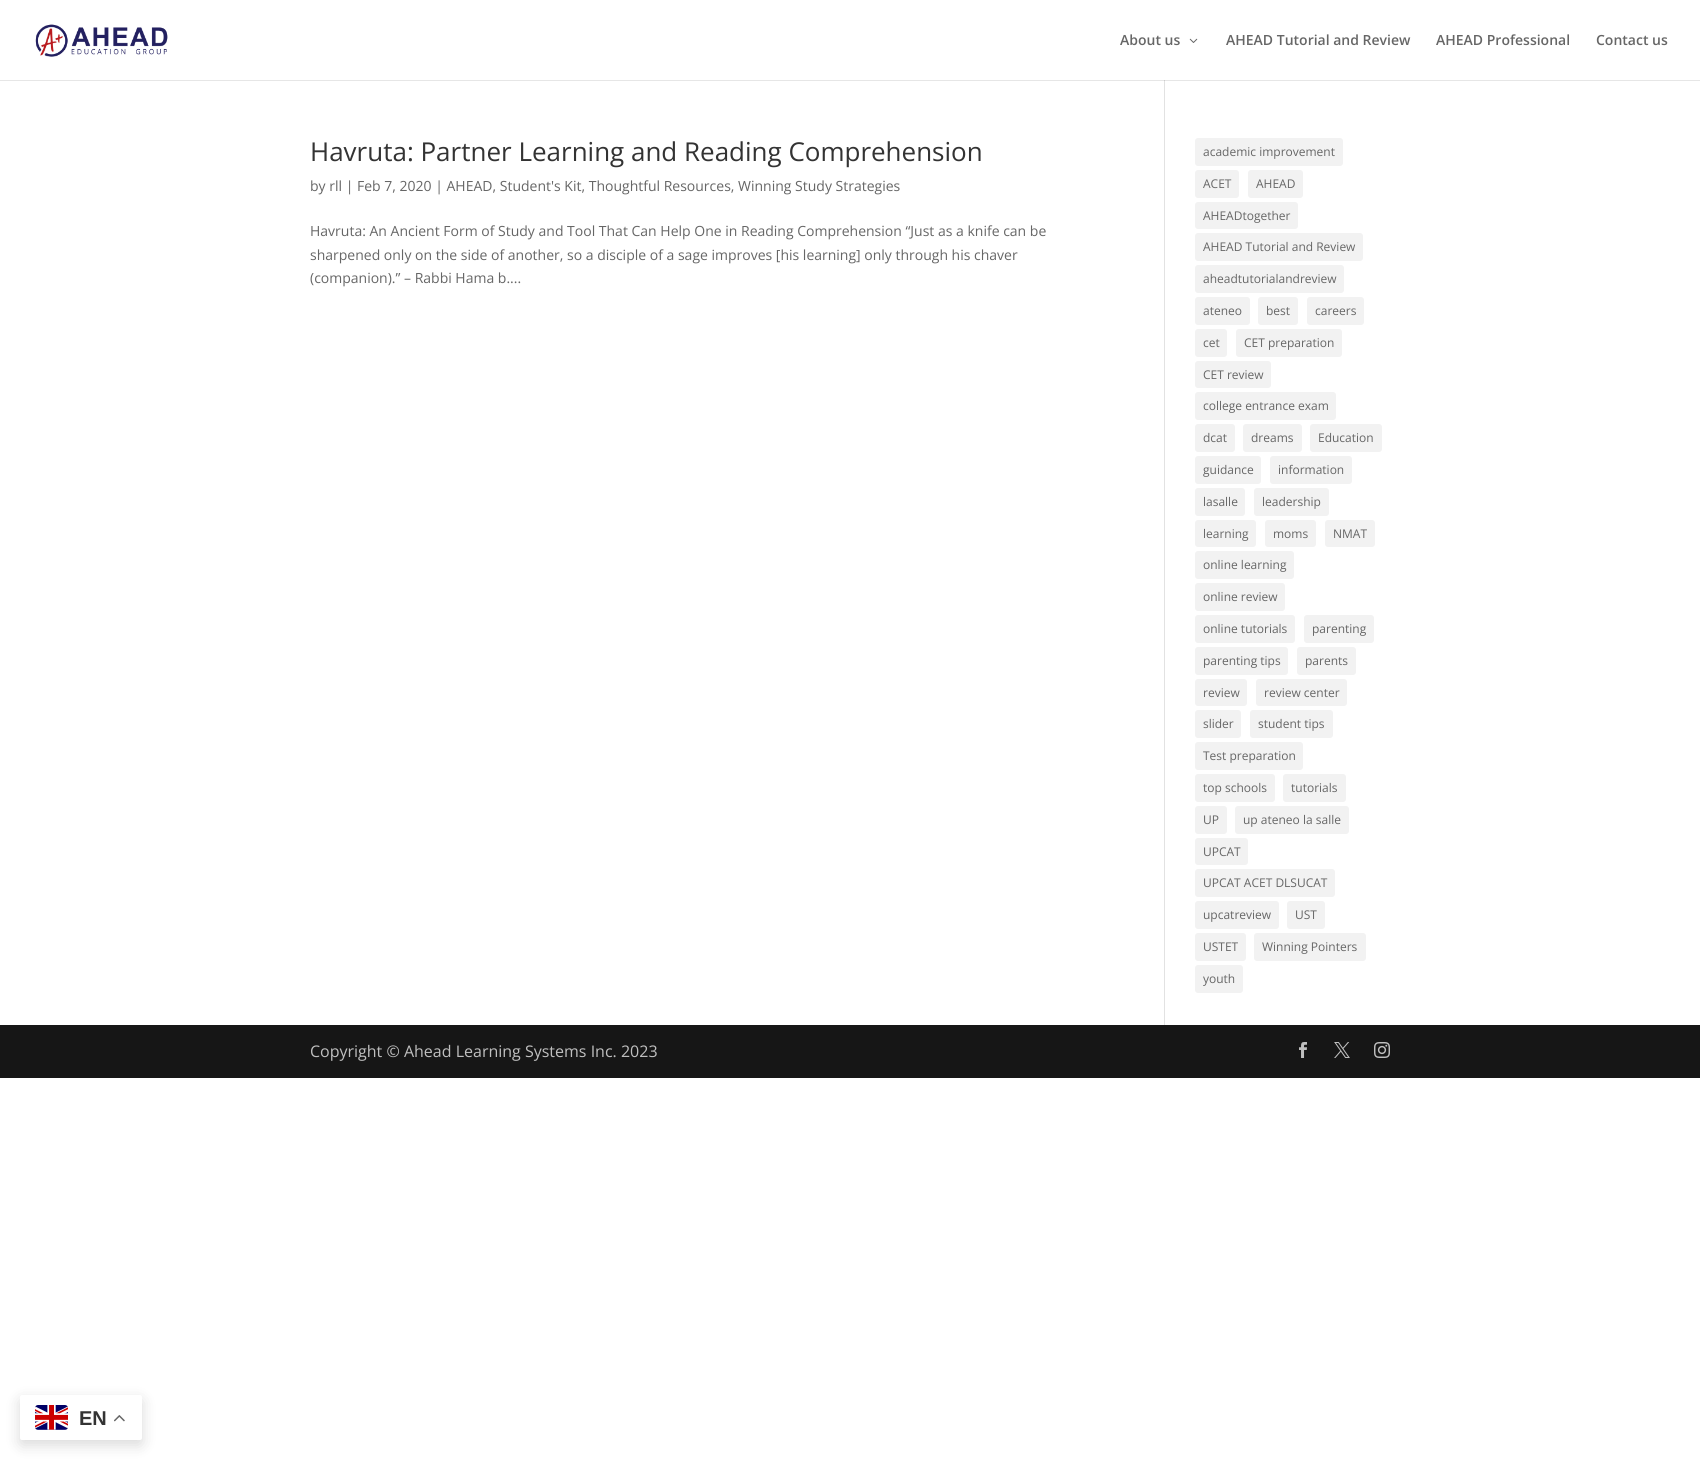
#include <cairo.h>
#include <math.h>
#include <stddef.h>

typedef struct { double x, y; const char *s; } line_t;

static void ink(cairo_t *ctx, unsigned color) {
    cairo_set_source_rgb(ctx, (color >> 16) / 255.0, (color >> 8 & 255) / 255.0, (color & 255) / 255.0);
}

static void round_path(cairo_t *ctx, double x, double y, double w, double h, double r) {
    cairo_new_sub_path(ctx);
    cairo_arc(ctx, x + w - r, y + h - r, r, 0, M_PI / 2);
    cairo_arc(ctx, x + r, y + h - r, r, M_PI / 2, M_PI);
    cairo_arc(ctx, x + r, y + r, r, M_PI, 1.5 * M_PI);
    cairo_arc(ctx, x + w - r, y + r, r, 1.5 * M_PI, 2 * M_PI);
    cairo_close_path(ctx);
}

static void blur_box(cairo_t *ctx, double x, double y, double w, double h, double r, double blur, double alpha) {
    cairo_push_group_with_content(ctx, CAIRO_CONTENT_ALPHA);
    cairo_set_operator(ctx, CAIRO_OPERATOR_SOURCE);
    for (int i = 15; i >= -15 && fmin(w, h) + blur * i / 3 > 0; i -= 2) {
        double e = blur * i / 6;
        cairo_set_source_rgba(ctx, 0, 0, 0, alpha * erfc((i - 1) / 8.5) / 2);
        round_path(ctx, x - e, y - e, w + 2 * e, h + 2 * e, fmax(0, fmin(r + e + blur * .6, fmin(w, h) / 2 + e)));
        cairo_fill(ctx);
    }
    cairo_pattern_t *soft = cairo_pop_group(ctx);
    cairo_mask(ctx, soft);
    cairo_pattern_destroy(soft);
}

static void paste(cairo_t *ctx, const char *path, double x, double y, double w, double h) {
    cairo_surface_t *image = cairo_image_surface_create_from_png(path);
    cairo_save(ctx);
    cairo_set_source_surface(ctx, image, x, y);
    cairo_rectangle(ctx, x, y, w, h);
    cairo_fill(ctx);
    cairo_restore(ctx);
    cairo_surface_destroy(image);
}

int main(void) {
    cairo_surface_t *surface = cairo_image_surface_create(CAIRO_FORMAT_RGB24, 1700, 1467);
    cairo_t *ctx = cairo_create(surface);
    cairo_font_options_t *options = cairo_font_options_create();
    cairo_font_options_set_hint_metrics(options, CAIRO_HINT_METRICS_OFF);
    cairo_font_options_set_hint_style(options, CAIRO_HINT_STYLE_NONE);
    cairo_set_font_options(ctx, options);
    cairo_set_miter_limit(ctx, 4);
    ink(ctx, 0xFFFFFF);
    cairo_paint(ctx);
    ink(ctx, 0xE6E6E6);
    cairo_rectangle(ctx, 0, 80, 1700, 1);
    cairo_fill(ctx);
    paste(ctx, "media/1.png", 35, 24, 133, 33);
    cairo_select_font_face(ctx, "Open Sans SemiBold", CAIRO_FONT_SLANT_NORMAL, CAIRO_FONT_WEIGHT_NORMAL);
    cairo_set_font_size(ctx, 14);
    ink(ctx, 0x666666);
    cairo_move_to(ctx, 1120, 45);
    cairo_show_text(ctx, "About us");
    paste(ctx, "media/2.png", 1189, 38, 9, 5);
    {
        static const line_t items[] = {
            {1226, 45, "AHEAD Tutorial and Review"},
            {1436, 45, "AHEAD Professional"},
            {1596, 45, "Contact us"},
        };
        for (size_t i = 0; i < sizeof items / sizeof *items; i++) {
            cairo_move_to(ctx, items[i].x, items[i].y);
            cairo_show_text(ctx, items[i].s);
        }
    }
    ink(ctx, 0xE2E2E2);
    cairo_rectangle(ctx, 1164, 80, 1, 945);
    cairo_fill(ctx);
    ink(ctx, 0xCBCBCB);
    cairo_rectangle(ctx, 1164, 80, 1, 1);
    cairo_fill(ctx);
    cairo_select_font_face(ctx, "Open Sans", CAIRO_FONT_SLANT_NORMAL, CAIRO_FONT_WEIGHT_NORMAL);
    cairo_set_font_size(ctx, 26);
    ink(ctx, 0x333333);
    cairo_move_to(ctx, 310, 161);
    cairo_show_text(ctx, "Havruta: Partner Learning and Reading Comprehension");
    cairo_set_font_size(ctx, 14);
    ink(ctx, 0x666666);
    {
        static const line_t items[] = {
            {310, 191, "by rll | Feb 7, 2020 | AHEAD, Student's Kit, Thoughtful Resources, Winning Study Strategies"},
            {310, 236, "Havruta: An Ancient Form of Study and Tool That Can Help One in Reading Comprehension “Just as a knife can be"},
            {310, 260, "sharpened only on the side of another, so a disciple of a sage improves [his learning] only through his chaver"},
            {310, 283, "(companion).” – Rabbi Hama b...."},
        };
        for (size_t i = 0; i < sizeof items / sizeof *items; i++) {
            cairo_move_to(ctx, items[i].x, items[i].y);
            cairo_show_text(ctx, items[i].s);
        }
    }
    ink(ctx, 0xF2F2F2);
    round_path(ctx, 1195, 138, 148, 28, 3);
    cairo_fill(ctx);
    cairo_set_font_size(ctx, 12);
    ink(ctx, 0x666666);
    cairo_move_to(ctx, 1203, 156);
    cairo_show_text(ctx, "academic improvement");
    ink(ctx, 0xF2F2F2);
    round_path(ctx, 1195, 170, 44, 28, 3);
    cairo_fill(ctx);
    ink(ctx, 0x666666);
    cairo_move_to(ctx, 1203, 188);
    cairo_show_text(ctx, "ACET");
    ink(ctx, 0xF2F2F2);
    round_path(ctx, 1248, 170, 55, 28, 3);
    cairo_fill(ctx);
    ink(ctx, 0x666666);
    cairo_move_to(ctx, 1256, 188);
    cairo_show_text(ctx, "AHEAD");
    ink(ctx, 0xF2F2F2);
    round_path(ctx, 1195, 202, 103, 27, 3);
    cairo_fill(ctx);
    ink(ctx, 0x666666);
    cairo_move_to(ctx, 1203, 220);
    cairo_show_text(ctx, "AHEADtogether");
    ink(ctx, 0xF2F2F2);
    round_path(ctx, 1195, 233, 168, 28, 3);
    cairo_fill(ctx);
    ink(ctx, 0x666666);
    cairo_move_to(ctx, 1203, 251);
    cairo_show_text(ctx, "AHEAD Tutorial and Review");
    ink(ctx, 0xF2F2F2);
    round_path(ctx, 1195, 265, 149, 28, 3);
    cairo_fill(ctx);
    ink(ctx, 0x666666);
    cairo_move_to(ctx, 1203, 283);
    cairo_show_text(ctx, "aheadtutorialandreview");
    ink(ctx, 0xF2F2F2);
    round_path(ctx, 1195, 297, 55, 28, 3);
    cairo_fill(ctx);
    ink(ctx, 0x666666);
    cairo_move_to(ctx, 1203, 315);
    cairo_show_text(ctx, "ateneo");
    ink(ctx, 0xF2F2F2);
    round_path(ctx, 1258, 297, 40, 28, 3);
    cairo_fill(ctx);
    ink(ctx, 0x666666);
    cairo_move_to(ctx, 1266, 315);
    cairo_show_text(ctx, "best");
    ink(ctx, 0xF2F2F2);
    round_path(ctx, 1307, 297, 57, 28, 3);
    cairo_fill(ctx);
    ink(ctx, 0x666666);
    cairo_move_to(ctx, 1315, 315);
    cairo_show_text(ctx, "careers");
    ink(ctx, 0xF2F2F2);
    round_path(ctx, 1195, 329, 32, 28, 3);
    cairo_fill(ctx);
    ink(ctx, 0x666666);
    cairo_move_to(ctx, 1203, 347);
    cairo_show_text(ctx, "cet");
    ink(ctx, 0xF2F2F2);
    round_path(ctx, 1236, 329, 106, 28, 3);
    cairo_fill(ctx);
    ink(ctx, 0x666666);
    cairo_move_to(ctx, 1244, 347);
    cairo_show_text(ctx, "CET preparation");
    ink(ctx, 0xF2F2F2);
    round_path(ctx, 1195, 361, 76, 27, 3);
    cairo_fill(ctx);
    ink(ctx, 0x666666);
    cairo_move_to(ctx, 1203, 379);
    cairo_show_text(ctx, "CET review");
    ink(ctx, 0xF2F2F2);
    round_path(ctx, 1195, 392, 141, 28, 3);
    cairo_fill(ctx);
    ink(ctx, 0x666666);
    cairo_move_to(ctx, 1203, 410);
    cairo_show_text(ctx, "college entrance exam");
    ink(ctx, 0xF2F2F2);
    round_path(ctx, 1195, 424, 40, 28, 3);
    cairo_fill(ctx);
    ink(ctx, 0x666666);
    cairo_move_to(ctx, 1203, 442);
    cairo_show_text(ctx, "dcat");
    ink(ctx, 0xF2F2F2);
    round_path(ctx, 1243, 424, 59, 28, 3);
    cairo_fill(ctx);
    ink(ctx, 0x666666);
    cairo_move_to(ctx, 1251, 442);
    cairo_show_text(ctx, "dreams");
    ink(ctx, 0xF2F2F2);
    round_path(ctx, 1310, 424, 72, 28, 3);
    cairo_fill(ctx);
    ink(ctx, 0x666666);
    cairo_move_to(ctx, 1318, 442);
    cairo_show_text(ctx, "Education");
    ink(ctx, 0xF2F2F2);
    round_path(ctx, 1195, 456, 66, 28, 3);
    cairo_fill(ctx);
    ink(ctx, 0x666666);
    cairo_move_to(ctx, 1203, 474);
    cairo_show_text(ctx, "guidance");
    ink(ctx, 0xF2F2F2);
    round_path(ctx, 1270, 456, 82, 28, 3);
    cairo_fill(ctx);
    ink(ctx, 0x666666);
    cairo_move_to(ctx, 1278, 474);
    cairo_show_text(ctx, "information");
    ink(ctx, 0xF2F2F2);
    round_path(ctx, 1195, 488, 50, 28, 3);
    cairo_fill(ctx);
    ink(ctx, 0x666666);
    cairo_move_to(ctx, 1203, 506);
    cairo_show_text(ctx, "lasalle");
    ink(ctx, 0xF2F2F2);
    round_path(ctx, 1254, 488, 75, 28, 3);
    cairo_fill(ctx);
    ink(ctx, 0x666666);
    cairo_move_to(ctx, 1262, 506);
    cairo_show_text(ctx, "leadership");
    ink(ctx, 0xF2F2F2);
    round_path(ctx, 1195, 520, 61, 27, 3);
    cairo_fill(ctx);
    ink(ctx, 0x666666);
    cairo_move_to(ctx, 1203, 538);
    cairo_show_text(ctx, "learning");
    ink(ctx, 0xF2F2F2);
    round_path(ctx, 1265, 520, 51, 27, 3);
    cairo_fill(ctx);
    ink(ctx, 0x666666);
    cairo_move_to(ctx, 1273, 538);
    cairo_show_text(ctx, "moms");
    ink(ctx, 0xF2F2F2);
    round_path(ctx, 1325, 520, 50, 27, 3);
    cairo_fill(ctx);
    ink(ctx, 0x666666);
    cairo_move_to(ctx, 1333, 538);
    cairo_show_text(ctx, "NMAT");
    ink(ctx, 0xF2F2F2);
    round_path(ctx, 1195, 551, 99, 28, 3);
    cairo_fill(ctx);
    ink(ctx, 0x666666);
    cairo_move_to(ctx, 1203, 569);
    cairo_show_text(ctx, "online learning");
    ink(ctx, 0xF2F2F2);
    round_path(ctx, 1195, 583, 90, 28, 3);
    cairo_fill(ctx);
    ink(ctx, 0x666666);
    cairo_move_to(ctx, 1203, 601);
    cairo_show_text(ctx, "online review");
    ink(ctx, 0xF2F2F2);
    round_path(ctx, 1195, 615, 100, 28, 3);
    cairo_fill(ctx);
    ink(ctx, 0x666666);
    cairo_move_to(ctx, 1203, 633);
    cairo_show_text(ctx, "online tutorials");
    ink(ctx, 0xF2F2F2);
    round_path(ctx, 1304, 615, 70, 28, 3);
    cairo_fill(ctx);
    ink(ctx, 0x666666);
    cairo_move_to(ctx, 1312, 633);
    cairo_show_text(ctx, "parenting");
    ink(ctx, 0xF2F2F2);
    round_path(ctx, 1195, 647, 93, 28, 3);
    cairo_fill(ctx);
    ink(ctx, 0x666666);
    cairo_move_to(ctx, 1203, 665);
    cairo_show_text(ctx, "parenting tips");
    ink(ctx, 0xF2F2F2);
    round_path(ctx, 1297, 647, 59, 28, 3);
    cairo_fill(ctx);
    ink(ctx, 0x666666);
    cairo_move_to(ctx, 1305, 665);
    cairo_show_text(ctx, "parents");
    ink(ctx, 0xF2F2F2);
    round_path(ctx, 1195, 679, 52, 27, 3);
    cairo_fill(ctx);
    ink(ctx, 0x666666);
    cairo_move_to(ctx, 1203, 697);
    cairo_show_text(ctx, "review");
    ink(ctx, 0xF2F2F2);
    round_path(ctx, 1256, 679, 91, 27, 3);
    cairo_fill(ctx);
    ink(ctx, 0x666666);
    cairo_move_to(ctx, 1264, 697);
    cairo_show_text(ctx, "review center");
    ink(ctx, 0xF2F2F2);
    round_path(ctx, 1195, 710, 46, 28, 3);
    cairo_fill(ctx);
    ink(ctx, 0x666666);
    cairo_move_to(ctx, 1203, 728);
    cairo_show_text(ctx, "slider");
    ink(ctx, 0xF2F2F2);
    round_path(ctx, 1250, 710, 83, 28, 3);
    cairo_fill(ctx);
    ink(ctx, 0x666666);
    cairo_move_to(ctx, 1258, 728);
    cairo_show_text(ctx, "student tips");
    ink(ctx, 0xF2F2F2);
    round_path(ctx, 1195, 742, 108, 28, 3);
    cairo_fill(ctx);
    ink(ctx, 0x666666);
    cairo_move_to(ctx, 1203, 760);
    cairo_show_text(ctx, "Test preparation");
    ink(ctx, 0xF2F2F2);
    round_path(ctx, 1195, 774, 80, 28, 3);
    cairo_fill(ctx);
    ink(ctx, 0x666666);
    cairo_move_to(ctx, 1203, 792);
    cairo_show_text(ctx, "top schools");
    ink(ctx, 0xF2F2F2);
    round_path(ctx, 1283, 774, 63, 28, 3);
    cairo_fill(ctx);
    ink(ctx, 0x666666);
    cairo_move_to(ctx, 1291, 792);
    cairo_show_text(ctx, "tutorials");
    ink(ctx, 0xF2F2F2);
    round_path(ctx, 1195, 806, 32, 28, 3);
    cairo_fill(ctx);
    ink(ctx, 0x666666);
    cairo_move_to(ctx, 1203, 824);
    cairo_show_text(ctx, "UP");
    ink(ctx, 0xF2F2F2);
    round_path(ctx, 1235, 806, 114, 28, 3);
    cairo_fill(ctx);
    ink(ctx, 0x666666);
    cairo_move_to(ctx, 1243, 824);
    cairo_show_text(ctx, "up ateneo la salle");
    ink(ctx, 0xF2F2F2);
    round_path(ctx, 1195, 838, 53, 27, 3);
    cairo_fill(ctx);
    ink(ctx, 0x666666);
    cairo_move_to(ctx, 1203, 856);
    cairo_show_text(ctx, "UPCAT");
    ink(ctx, 0xF2F2F2);
    round_path(ctx, 1195, 869, 140, 28, 3);
    cairo_fill(ctx);
    ink(ctx, 0x666666);
    cairo_move_to(ctx, 1203, 887);
    cairo_show_text(ctx, "UPCAT ACET DLSUCAT");
    ink(ctx, 0xF2F2F2);
    round_path(ctx, 1195, 901, 84, 28, 3);
    cairo_fill(ctx);
    ink(ctx, 0x666666);
    cairo_move_to(ctx, 1203, 919);
    cairo_show_text(ctx, "upcatreview");
    ink(ctx, 0xF2F2F2);
    round_path(ctx, 1287, 901, 38, 28, 3);
    cairo_fill(ctx);
    ink(ctx, 0x666666);
    cairo_move_to(ctx, 1295, 919);
    cairo_show_text(ctx, "UST");
    ink(ctx, 0xF2F2F2);
    round_path(ctx, 1195, 933, 51, 28, 3);
    cairo_fill(ctx);
    ink(ctx, 0x666666);
    cairo_move_to(ctx, 1203, 951);
    cairo_show_text(ctx, "USTET");
    ink(ctx, 0xF2F2F2);
    round_path(ctx, 1254, 933, 112, 28, 3);
    cairo_fill(ctx);
    ink(ctx, 0x666666);
    cairo_move_to(ctx, 1262, 951);
    cairo_show_text(ctx, "Winning Pointers");
    ink(ctx, 0xF2F2F2);
    round_path(ctx, 1195, 965, 48, 28, 3);
    cairo_fill(ctx);
    ink(ctx, 0x666666);
    cairo_move_to(ctx, 1203, 983);
    cairo_show_text(ctx, "youth");
    ink(ctx, 0x161616);
    cairo_rectangle(ctx, 0, 1025, 1700, 53);
    cairo_fill(ctx);
    cairo_set_font_size(ctx, 16);
    ink(ctx, 0xBFBFBF);
    cairo_move_to(ctx, 310, 1057);
    cairo_show_text(ctx, "Copyright © Ahead Learning Systems Inc. 2023");
    paste(ctx, "media/3.png", 1299, 1042, 8, 16);
    paste(ctx, "media/4.png", 1334, 1042, 16, 16);
    paste(ctx, "media/5.png", 1374, 1042, 16, 16);
    ink(ctx, 0x000000);
    blur_box(ctx, 20, 1400, 122, 45, 2, 7.5, 0.15);
    ink(ctx, 0xFFFFFF);
    round_path(ctx, 20, 1395, 122, 45, 2);
    cairo_fill(ctx);
    paste(ctx, "media/6.png", 35, 1405, 33, 25);
    cairo_select_font_face(ctx, "Liberation Sans", CAIRO_FONT_SLANT_NORMAL, CAIRO_FONT_WEIGHT_BOLD);
    cairo_set_font_size(ctx, 20);
    ink(ctx, 0x333333);
    cairo_move_to(ctx, 79, 1425);
    cairo_show_text(ctx, "EN");
    paste(ctx, "media/7.png", 114, 1415, 11, 7);
    cairo_surface_write_to_png(surface, "image.png");
    cairo_font_options_destroy(options);
    cairo_destroy(ctx);
    cairo_surface_destroy(surface);
    return 0;
}
